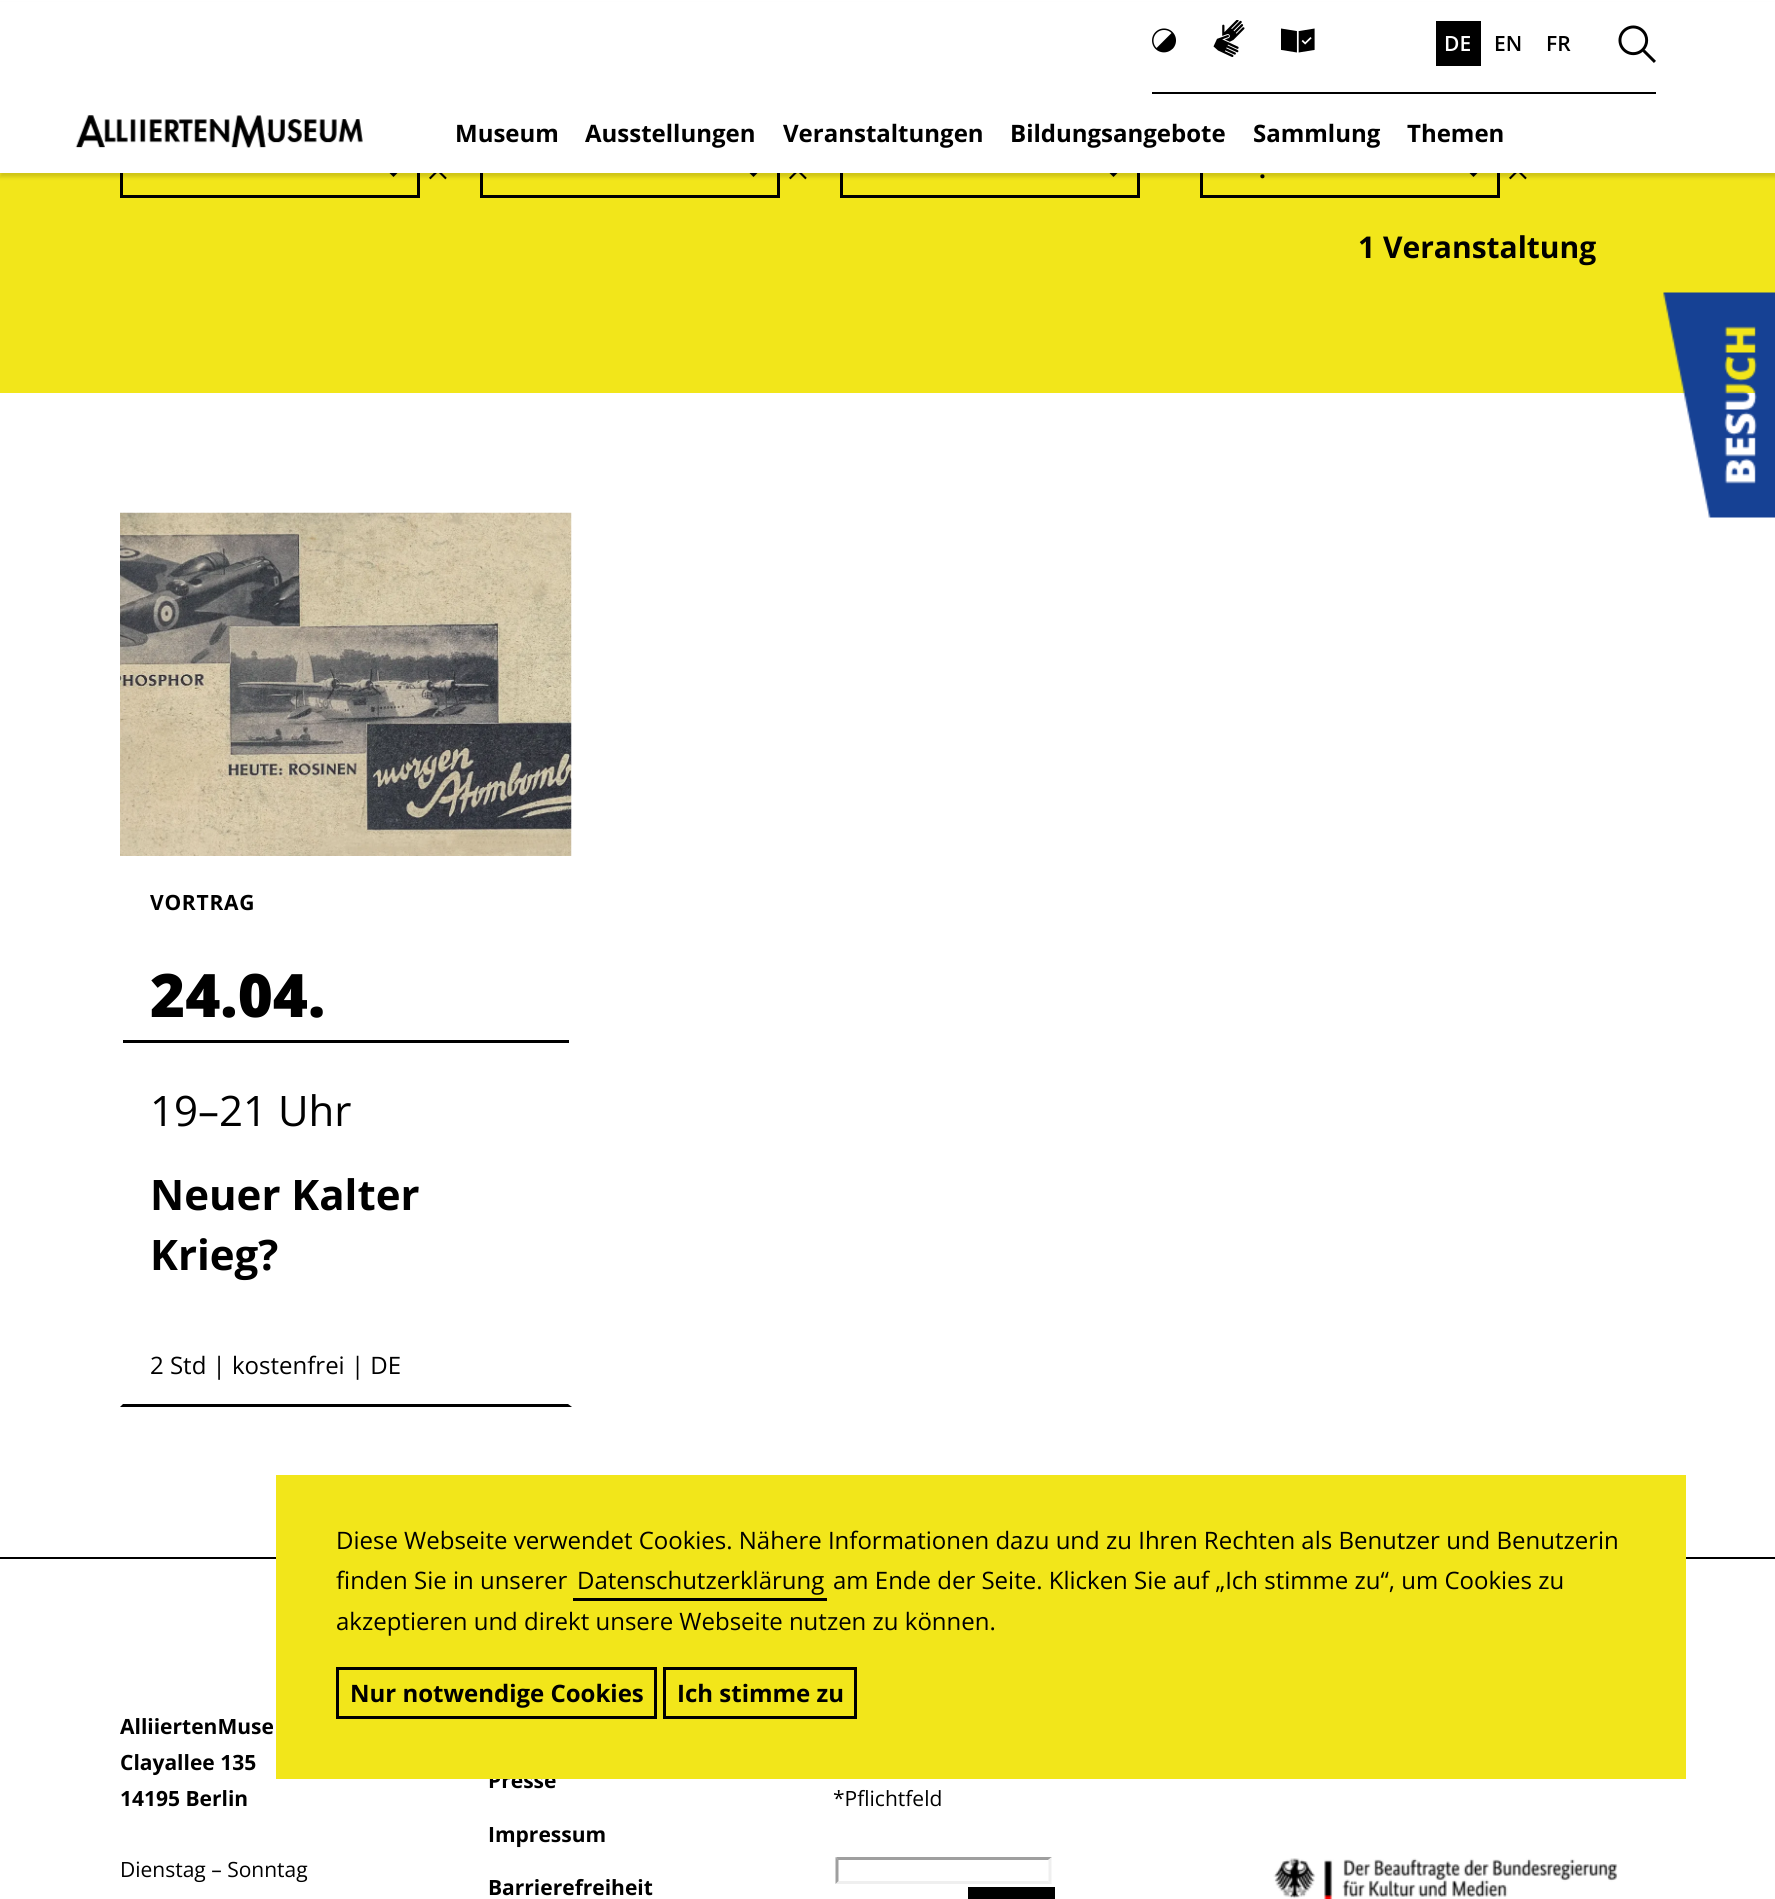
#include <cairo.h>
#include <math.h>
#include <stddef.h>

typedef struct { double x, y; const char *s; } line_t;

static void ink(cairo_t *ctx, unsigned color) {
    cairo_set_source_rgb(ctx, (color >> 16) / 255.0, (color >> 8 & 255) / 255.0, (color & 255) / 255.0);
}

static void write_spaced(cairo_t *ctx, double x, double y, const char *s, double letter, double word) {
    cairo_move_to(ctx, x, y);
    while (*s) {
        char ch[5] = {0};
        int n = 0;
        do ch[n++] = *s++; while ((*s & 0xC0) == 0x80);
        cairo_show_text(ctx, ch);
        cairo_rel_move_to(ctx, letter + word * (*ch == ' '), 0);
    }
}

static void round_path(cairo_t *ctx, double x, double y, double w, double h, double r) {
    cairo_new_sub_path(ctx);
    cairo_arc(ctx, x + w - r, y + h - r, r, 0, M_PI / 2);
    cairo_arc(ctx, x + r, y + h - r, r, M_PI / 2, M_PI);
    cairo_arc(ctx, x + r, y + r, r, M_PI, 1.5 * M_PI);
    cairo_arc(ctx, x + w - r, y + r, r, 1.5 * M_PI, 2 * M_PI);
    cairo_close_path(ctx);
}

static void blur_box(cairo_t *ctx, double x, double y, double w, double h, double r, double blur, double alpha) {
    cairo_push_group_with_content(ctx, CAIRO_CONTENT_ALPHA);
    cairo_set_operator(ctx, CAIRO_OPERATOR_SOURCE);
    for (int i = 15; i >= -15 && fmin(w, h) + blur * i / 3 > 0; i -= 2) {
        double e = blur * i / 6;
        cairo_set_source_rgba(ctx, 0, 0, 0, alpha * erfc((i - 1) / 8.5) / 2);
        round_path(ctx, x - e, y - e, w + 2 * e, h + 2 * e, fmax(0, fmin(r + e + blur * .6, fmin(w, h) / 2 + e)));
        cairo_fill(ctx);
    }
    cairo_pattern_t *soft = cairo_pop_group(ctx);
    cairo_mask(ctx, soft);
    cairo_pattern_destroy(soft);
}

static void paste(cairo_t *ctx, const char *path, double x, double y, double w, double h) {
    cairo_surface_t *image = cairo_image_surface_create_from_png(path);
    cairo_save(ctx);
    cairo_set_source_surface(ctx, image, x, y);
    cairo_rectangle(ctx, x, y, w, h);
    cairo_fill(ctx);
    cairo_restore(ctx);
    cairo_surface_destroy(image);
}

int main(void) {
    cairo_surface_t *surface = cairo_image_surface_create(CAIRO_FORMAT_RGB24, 1775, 1899);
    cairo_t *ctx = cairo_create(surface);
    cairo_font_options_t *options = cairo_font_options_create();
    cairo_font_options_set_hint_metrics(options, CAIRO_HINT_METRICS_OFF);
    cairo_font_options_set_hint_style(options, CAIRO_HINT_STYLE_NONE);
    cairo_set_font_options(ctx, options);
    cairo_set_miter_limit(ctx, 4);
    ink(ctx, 0xFFFFFF);
    cairo_paint(ctx);
    ink(ctx, 0xF2E61A);
    cairo_rectangle(ctx, 0, 173, 1775, 220);
    cairo_fill(ctx);
    cairo_rectangle(ctx, 121.5, 142.5, 297, 54);
    ink(ctx, 0x000000);
    cairo_set_line_width(ctx, 3);
    cairo_stroke(ctx);
    paste(ctx, "media/6.png", 429, 173, 18, 7);
    cairo_new_path(ctx);
    cairo_move_to(ctx, 393.5, 177);
    cairo_line_to(ctx, 382.5, 166);
    cairo_line_to(ctx, 384.5, 164);
    cairo_line_to(ctx, 393.5, 173);
    cairo_line_to(ctx, 403, 164);
    cairo_line_to(ctx, 404.5, 166);
    cairo_close_path(ctx);
    cairo_fill(ctx);
    cairo_rectangle(ctx, 481.5, 142.5, 297, 54);
    cairo_stroke(ctx);
    paste(ctx, "media/6.png", 789, 173, 18, 7);
    cairo_new_path(ctx);
    cairo_move_to(ctx, 753.5, 177);
    cairo_line_to(ctx, 742.5, 166);
    cairo_line_to(ctx, 744.5, 164);
    cairo_line_to(ctx, 753.5, 173);
    cairo_line_to(ctx, 763, 164);
    cairo_line_to(ctx, 764.5, 166);
    cairo_close_path(ctx);
    cairo_fill(ctx);
    cairo_rectangle(ctx, 841.5, 142.5, 297, 54);
    cairo_stroke(ctx);
    cairo_new_path(ctx);
    cairo_move_to(ctx, 1113.5, 177);
    cairo_line_to(ctx, 1102.5, 166);
    cairo_line_to(ctx, 1104.5, 164);
    cairo_line_to(ctx, 1113.5, 173);
    cairo_line_to(ctx, 1123, 164);
    cairo_line_to(ctx, 1124.5, 166);
    cairo_close_path(ctx);
    cairo_fill(ctx);
    cairo_rectangle(ctx, 1201.5, 142.5, 297, 54);
    cairo_stroke(ctx);
    paste(ctx, "media/6.png", 1509, 173, 18, 7);
    cairo_new_path(ctx);
    cairo_move_to(ctx, 1473.5, 177);
    cairo_line_to(ctx, 1462.5, 166);
    cairo_line_to(ctx, 1464.5, 164);
    cairo_line_to(ctx, 1473.5, 173);
    cairo_line_to(ctx, 1483, 164);
    cairo_line_to(ctx, 1484.5, 166);
    cairo_close_path(ctx);
    cairo_fill(ctx);
    ink(ctx, 0x000000);
    blur_box(ctx, 0, 5, 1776, 172, 0, 2, 0.15);
    ink(ctx, 0xFFFFFF);
    cairo_rectangle(ctx, 0, 2, 1775, 171);
    cairo_fill(ctx);
    ink(ctx, 0x000000);
    cairo_rectangle(ctx, 1152, 92, 504, 2);
    cairo_fill(ctx);
    paste(ctx, "media/1.png", 1152, 28, 24, 25);
    paste(ctx, "media/2.png", 1213, 20, 32, 37);
    paste(ctx, "media/3.png", 1281, 28, 34, 25);
    cairo_rectangle(ctx, 1436, 21, 45, 45);
    cairo_fill(ctx);
    cairo_select_font_face(ctx, "Open Sans SemiBold", CAIRO_FONT_SLANT_NORMAL, CAIRO_FONT_WEIGHT_NORMAL);
    cairo_set_font_size(ctx, 21);
    ink(ctx, 0xFFFFFF);
    cairo_move_to(ctx, 1444, 51);
    cairo_show_text(ctx, "DE");
    ink(ctx, 0x000000);
    cairo_move_to(ctx, 1494, 51);
    cairo_show_text(ctx, "EN");
    cairo_move_to(ctx, 1546, 51);
    cairo_show_text(ctx, "FR");
    paste(ctx, "media/4.png", 1618, 25, 38, 38);
    paste(ctx, "media/5.png", 75, 115, 288, 33);
    cairo_select_font_face(ctx, "Open Sans", CAIRO_FONT_SLANT_NORMAL, CAIRO_FONT_WEIGHT_BOLD);
    cairo_set_font_size(ctx, 24);
    {
        static const line_t items[] = {
            {455, 142, "Museum"},
            {585, 142, "Ausstellungen"},
            {783, 142, "Veranstaltungen"},
            {1010, 142, "Bildungsangebote"},
            {1253, 142, "Sammlung"},
            {1407, 142, "Themen"},
            {1259, 178, "."},
        };
        for (size_t i = 0; i < sizeof items / sizeof *items; i++) {
            cairo_move_to(ctx, items[i].x, items[i].y);
            cairo_show_text(ctx, items[i].s);
        }
    }
    cairo_set_font_size(ctx, 30);
    cairo_move_to(ctx, 1358, 258);
    cairo_show_text(ctx, "1 Veranstaltung");
    cairo_new_path(ctx);
    cairo_move_to(ctx, 572, 1407);
    cairo_line_to(ctx, 120, 1407);
    cairo_line_to(ctx, 123, 1404);
    cairo_line_to(ctx, 568, 1404);
    cairo_close_path(ctx);
    cairo_fill(ctx);
    paste(ctx, "media/7.png", 120, 512, 452, 344);
    cairo_set_font_size(ctx, 21);
    write_spaced(ctx, 150, 910, "VORTRAG", 0.75, 0);
    cairo_rectangle(ctx, 123, 1040, 446, 3);
    cairo_fill(ctx);
    cairo_select_font_face(ctx, "Open Sans ExtraBold", CAIRO_FONT_SLANT_NORMAL, CAIRO_FONT_WEIGHT_NORMAL);
    cairo_set_font_size(ctx, 60);
    cairo_move_to(ctx, 150, 1017);
    cairo_show_text(ctx, "24.04.");
    cairo_select_font_face(ctx, "Open Sans", CAIRO_FONT_SLANT_NORMAL, CAIRO_FONT_WEIGHT_NORMAL);
    cairo_set_font_size(ctx, 42);
    cairo_move_to(ctx, 150, 1126);
    cairo_show_text(ctx, "19–21 Uhr");
    cairo_select_font_face(ctx, "Open Sans", CAIRO_FONT_SLANT_NORMAL, CAIRO_FONT_WEIGHT_BOLD);
    cairo_move_to(ctx, 150, 1210);
    cairo_show_text(ctx, "Neuer Kalter");
    cairo_move_to(ctx, 150, 1270);
    cairo_show_text(ctx, "Krieg?");
    cairo_select_font_face(ctx, "Open Sans", CAIRO_FONT_SLANT_NORMAL, CAIRO_FONT_WEIGHT_NORMAL);
    cairo_set_font_size(ctx, 24);
    cairo_move_to(ctx, 150, 1374);
    cairo_show_text(ctx, "2 Std | kostenfrei | DE");
    paste(ctx, "media/8.png", 1663, 292, 112, 226);
    cairo_rectangle(ctx, 0, 1557, 1775, 2);
    cairo_fill(ctx);
    cairo_select_font_face(ctx, "Open Sans", CAIRO_FONT_SLANT_NORMAL, CAIRO_FONT_WEIGHT_BOLD);
    cairo_set_font_size(ctx, 21);
    {
        static const line_t items[] = {
            {120, 1734, "AlliiertenMuse"},
            {120, 1770, "Clayallee 135"},
            {120, 1806, "14195 Berlin"},
        };
        for (size_t i = 0; i < sizeof items / sizeof *items; i++) {
            cairo_move_to(ctx, items[i].x, items[i].y);
            cairo_show_text(ctx, items[i].s);
        }
    }
    cairo_select_font_face(ctx, "Open Sans", CAIRO_FONT_SLANT_NORMAL, CAIRO_FONT_WEIGHT_NORMAL);
    cairo_move_to(ctx, 120, 1877);
    cairo_show_text(ctx, "Dienstag – Sonntag");
    cairo_select_font_face(ctx, "Open Sans", CAIRO_FONT_SLANT_NORMAL, CAIRO_FONT_WEIGHT_BOLD);
    {
        static const line_t items[] = {
            {488, 1788, "Presse"},
            {488, 1842, "Impressum"},
            {488, 1895, "Barrierefreiheit"},
        };
        for (size_t i = 0; i < sizeof items / sizeof *items; i++) {
            cairo_move_to(ctx, items[i].x, items[i].y);
            cairo_show_text(ctx, items[i].s);
        }
    }
    cairo_select_font_face(ctx, "Open Sans", CAIRO_FONT_SLANT_NORMAL, CAIRO_FONT_WEIGHT_NORMAL);
    cairo_move_to(ctx, 833, 1806);
    cairo_show_text(ctx, "*Pflichtfeld");
    ink(ctx, 0x9F9F9F);
    cairo_new_path(ctx);
    cairo_move_to(ctx, 836, 1857);
    cairo_line_to(ctx, 1052, 1857);
    cairo_line_to(ctx, 1048, 1860);
    cairo_line_to(ctx, 838, 1860);
    cairo_close_path(ctx);
    cairo_fill(ctx);
    ink(ctx, 0xEFEFEF);
    cairo_new_path(ctx);
    cairo_move_to(ctx, 1051.5, 1857);
    cairo_line_to(ctx, 1051.5, 1884);
    cairo_line_to(ctx, 1048.5, 1881);
    cairo_line_to(ctx, 1048.5, 1860);
    cairo_close_path(ctx);
    cairo_fill(ctx);
    cairo_new_path(ctx);
    cairo_move_to(ctx, 1052, 1884);
    cairo_line_to(ctx, 836, 1884);
    cairo_line_to(ctx, 838, 1881);
    cairo_line_to(ctx, 1048, 1881);
    cairo_close_path(ctx);
    cairo_fill(ctx);
    ink(ctx, 0x9F9F9F);
    cairo_new_path(ctx);
    cairo_move_to(ctx, 835.5, 1884);
    cairo_line_to(ctx, 835.5, 1857);
    cairo_line_to(ctx, 838.5, 1860);
    cairo_line_to(ctx, 838.5, 1881);
    cairo_close_path(ctx);
    cairo_fill(ctx);
    ink(ctx, 0x000000);
    cairo_rectangle(ctx, 968, 1887, 87, 12);
    cairo_fill(ctx);
    paste(ctx, "media/9.png", 1273, 1858, 345, 41);
    ink(ctx, 0xF2E61A);
    cairo_rectangle(ctx, 276, 1475, 1410, 304);
    cairo_fill(ctx);
    cairo_set_font_size(ctx, 24);
    ink(ctx, 0x000000);
    {
        static const line_t items[] = {
            {336, 1549, "Diese Webseite verwendet Cookies. Nähere Informationen dazu und zu Ihren Rechten als Benutzer und Benutzerin"},
            {336, 1589, "finden Sie in unserer"},
            {577, 1589, "Datenschutzerklärung"},
        };
        for (size_t i = 0; i < sizeof items / sizeof *items; i++) {
            cairo_move_to(ctx, items[i].x, items[i].y);
            cairo_show_text(ctx, items[i].s);
        }
    }
    cairo_rectangle(ctx, 573, 1598, 254, 3);
    cairo_fill(ctx);
    cairo_move_to(ctx, 833, 1589);
    cairo_show_text(ctx, "am Ende der Seite. Klicken Sie auf „Ich stimme zu“, um Cookies zu");
    cairo_move_to(ctx, 336, 1630);
    cairo_show_text(ctx, "akzeptieren und direkt unsere Webseite nutzen zu können.");
    cairo_rectangle(ctx, 337.5, 1668.5, 318, 49);
    cairo_stroke(ctx);
    cairo_select_font_face(ctx, "Open Sans", CAIRO_FONT_SLANT_NORMAL, CAIRO_FONT_WEIGHT_BOLD);
    cairo_move_to(ctx, 350, 1702);
    cairo_show_text(ctx, "Nur notwendige Cookies");
    cairo_rectangle(ctx, 664.5, 1668.5, 191, 49);
    cairo_stroke(ctx);
    cairo_move_to(ctx, 677, 1702);
    cairo_show_text(ctx, "Ich stimme zu");
    cairo_surface_write_to_png(surface, "image.png");
    cairo_font_options_destroy(options);
    cairo_destroy(ctx);
    cairo_surface_destroy(surface);
    return 0;
}
